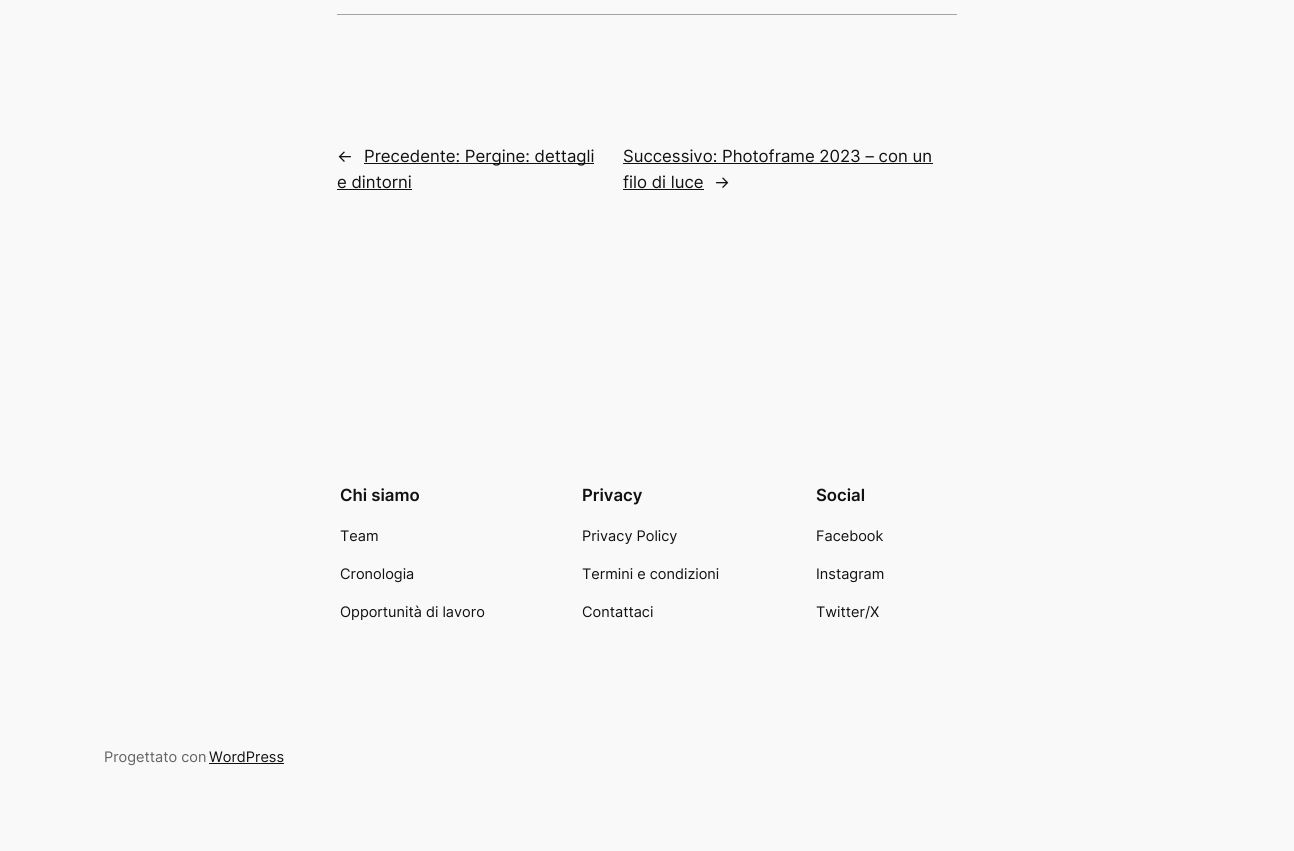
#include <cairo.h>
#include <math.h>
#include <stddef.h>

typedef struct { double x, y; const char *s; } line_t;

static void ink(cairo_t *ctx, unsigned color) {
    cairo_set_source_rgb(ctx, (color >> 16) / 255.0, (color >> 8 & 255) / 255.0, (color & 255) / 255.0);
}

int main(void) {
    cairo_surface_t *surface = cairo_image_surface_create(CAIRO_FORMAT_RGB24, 1294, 851);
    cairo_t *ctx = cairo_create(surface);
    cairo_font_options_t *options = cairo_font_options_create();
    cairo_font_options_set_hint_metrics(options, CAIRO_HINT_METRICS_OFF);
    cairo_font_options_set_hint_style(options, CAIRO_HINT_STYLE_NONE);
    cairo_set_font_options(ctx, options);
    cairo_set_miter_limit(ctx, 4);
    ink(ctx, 0xF9F9F9);
    cairo_paint(ctx);
    ink(ctx, 0xA4A4A4);
    cairo_rectangle(ctx, 337, 14, 620, 1);
    cairo_fill(ctx);
    cairo_select_font_face(ctx, "Inter", CAIRO_FONT_SLANT_NORMAL, CAIRO_FONT_WEIGHT_NORMAL);
    cairo_set_font_size(ctx, 16.75);
    ink(ctx, 0x111111);
    cairo_move_to(ctx, 337, 162);
    cairo_show_text(ctx, "←");
    cairo_rectangle(ctx, 364, 163, 230, 1);
    cairo_fill(ctx);
    cairo_move_to(ctx, 364, 162);
    cairo_show_text(ctx, "Precedente: Pergine: dettagli");
    cairo_move_to(ctx, 337, 188);
    cairo_show_text(ctx, "e dintorni");
    cairo_rectangle(ctx, 337, 189, 75, 1);
    cairo_fill(ctx);
    cairo_move_to(ctx, 623, 162);
    cairo_show_text(ctx, "Successivo: Photoframe 2023 – con un");
    cairo_rectangle(ctx, 623, 163, 310, 1);
    cairo_fill(ctx);
    cairo_move_to(ctx, 623, 188);
    cairo_show_text(ctx, "filo di luce");
    cairo_rectangle(ctx, 623, 189, 81, 1);
    cairo_fill(ctx);
    cairo_move_to(ctx, 714, 188);
    cairo_show_text(ctx, "→");
    cairo_select_font_face(ctx, "Inter SemiBold", CAIRO_FONT_SLANT_NORMAL, CAIRO_FONT_WEIGHT_NORMAL);
    cairo_move_to(ctx, 340, 501);
    cairo_show_text(ctx, "Chi siamo");
    cairo_select_font_face(ctx, "Inter", CAIRO_FONT_SLANT_NORMAL, CAIRO_FONT_WEIGHT_NORMAL);
    cairo_set_font_size(ctx, 14.5);
    {
        static const line_t items[] = {
            {340, 541, "Team"},
            {340, 579, "Cronologia"},
            {340, 617, "Opportunità di lavoro"},
        };
        for (size_t i = 0; i < sizeof items / sizeof *items; i++) {
            cairo_move_to(ctx, items[i].x, items[i].y);
            cairo_show_text(ctx, items[i].s);
        }
    }
    cairo_select_font_face(ctx, "Inter SemiBold", CAIRO_FONT_SLANT_NORMAL, CAIRO_FONT_WEIGHT_NORMAL);
    cairo_set_font_size(ctx, 16.75);
    cairo_move_to(ctx, 582, 501);
    cairo_show_text(ctx, "Privacy");
    cairo_select_font_face(ctx, "Inter", CAIRO_FONT_SLANT_NORMAL, CAIRO_FONT_WEIGHT_NORMAL);
    cairo_set_font_size(ctx, 14.5);
    {
        static const line_t items[] = {
            {582, 541, "Privacy Policy"},
            {582, 579, "Termini e condizioni"},
            {582, 617, "Contattaci"},
        };
        for (size_t i = 0; i < sizeof items / sizeof *items; i++) {
            cairo_move_to(ctx, items[i].x, items[i].y);
            cairo_show_text(ctx, items[i].s);
        }
    }
    cairo_select_font_face(ctx, "Inter SemiBold", CAIRO_FONT_SLANT_NORMAL, CAIRO_FONT_WEIGHT_NORMAL);
    cairo_set_font_size(ctx, 16.75);
    cairo_move_to(ctx, 816, 501);
    cairo_show_text(ctx, "Social");
    cairo_select_font_face(ctx, "Inter", CAIRO_FONT_SLANT_NORMAL, CAIRO_FONT_WEIGHT_NORMAL);
    cairo_set_font_size(ctx, 14.5);
    {
        static const line_t items[] = {
            {816, 541, "Facebook"},
            {816, 579, "Instagram"},
            {816, 617, "Twitter/X"},
        };
        for (size_t i = 0; i < sizeof items / sizeof *items; i++) {
            cairo_move_to(ctx, items[i].x, items[i].y);
            cairo_show_text(ctx, items[i].s);
        }
    }
    ink(ctx, 0x636363);
    cairo_move_to(ctx, 104, 762);
    cairo_show_text(ctx, "Progettato con");
    ink(ctx, 0x111111);
    cairo_move_to(ctx, 209, 762);
    cairo_show_text(ctx, "WordPress");
    cairo_rectangle(ctx, 209, 763, 75, 1);
    cairo_fill(ctx);
    cairo_surface_write_to_png(surface, "image.png");
    cairo_font_options_destroy(options);
    cairo_destroy(ctx);
    cairo_surface_destroy(surface);
    return 0;
}
